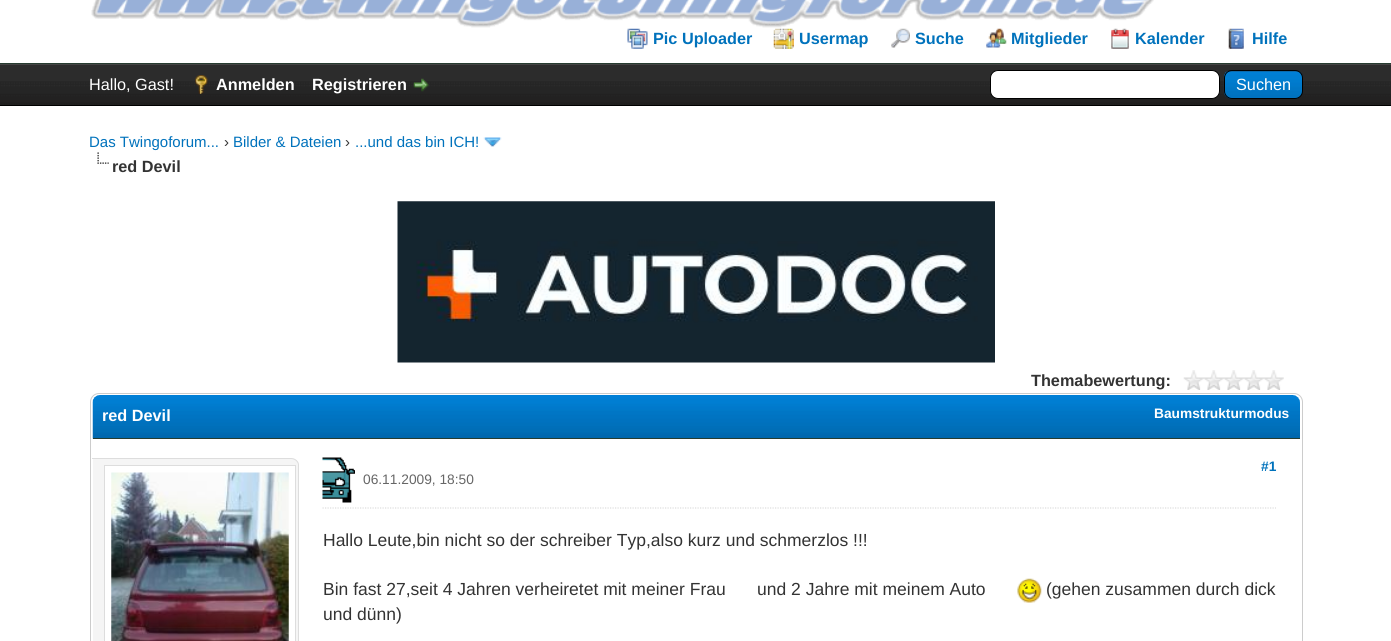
#include <cairo.h>
#include <math.h>
#include <stddef.h>

typedef struct { double x, y; const char *s; } line_t;

static void ink(cairo_t *ctx, unsigned color) {
    cairo_set_source_rgb(ctx, (color >> 16) / 255.0, (color >> 8 & 255) / 255.0, (color & 255) / 255.0);
}

static void round_path(cairo_t *ctx, double x, double y, double w, double h, double r) {
    cairo_new_sub_path(ctx);
    cairo_arc(ctx, x + w - r, y + h - r, r, 0, M_PI / 2);
    cairo_arc(ctx, x + r, y + h - r, r, M_PI / 2, M_PI);
    cairo_arc(ctx, x + r, y + r, r, M_PI, 1.5 * M_PI);
    cairo_arc(ctx, x + w - r, y + r, r, 1.5 * M_PI, 2 * M_PI);
    cairo_close_path(ctx);
}

static void paste(cairo_t *ctx, const char *path, double x, double y, double w, double h) {
    cairo_surface_t *image = cairo_image_surface_create_from_png(path);
    cairo_save(ctx);
    cairo_set_source_surface(ctx, image, x, y);
    cairo_rectangle(ctx, x, y, w, h);
    cairo_fill(ctx);
    cairo_restore(ctx);
    cairo_surface_destroy(image);
}

int main(void) {
    cairo_surface_t *surface = cairo_image_surface_create(CAIRO_FORMAT_RGB24, 1391, 641);
    cairo_t *ctx = cairo_create(surface);
    cairo_font_options_t *options = cairo_font_options_create();
    cairo_font_options_set_hint_metrics(options, CAIRO_HINT_METRICS_OFF);
    cairo_font_options_set_hint_style(options, CAIRO_HINT_STYLE_NONE);
    cairo_set_font_options(ctx, options);
    cairo_set_miter_limit(ctx, 4);
    ink(ctx, 0xFFFFFF);
    cairo_paint(ctx);
    ink(ctx, 0x263C30);
    cairo_rectangle(ctx, 0, 63, 1391, 1);
    cairo_fill(ctx);
    paste(ctx, "media/1.png", 91, 0, 1063, 28);
    paste(ctx, "media/2.png", 627, 28, 21, 21);
    cairo_select_font_face(ctx, "Liberation Sans", CAIRO_FONT_SLANT_NORMAL, CAIRO_FONT_WEIGHT_BOLD);
    cairo_set_font_size(ctx, 16.25);
    ink(ctx, 0x0072BC);
    cairo_move_to(ctx, 653, 44);
    cairo_show_text(ctx, "Pic Uploader");
    paste(ctx, "media/3.png", 773, 28, 21, 21);
    cairo_move_to(ctx, 799, 44);
    cairo_show_text(ctx, "Usermap");
    paste(ctx, "media/4.png", 891, 28, 19, 20);
    cairo_move_to(ctx, 915, 44);
    cairo_show_text(ctx, "Suche");
    paste(ctx, "media/5.png", 986, 28, 21, 20);
    cairo_move_to(ctx, 1011, 44);
    cairo_show_text(ctx, "Mitglieder");
    paste(ctx, "media/6.png", 1111, 28, 18, 21);
    cairo_move_to(ctx, 1135, 44);
    cairo_show_text(ctx, "Kalender");
    paste(ctx, "media/7.png", 1228, 28, 16, 21);
    cairo_move_to(ctx, 1252, 44);
    cairo_show_text(ctx, "Hilfe");
    paste(ctx, "media/8.png", 0, 65, 1391, 40);
    ink(ctx, 0x444444);
    cairo_rectangle(ctx, 0, 64, 1391, 1);
    cairo_fill(ctx);
    ink(ctx, 0x000000);
    cairo_rectangle(ctx, 0, 105, 1391, 1);
    cairo_fill(ctx);
    cairo_select_font_face(ctx, "Liberation Sans", CAIRO_FONT_SLANT_NORMAL, CAIRO_FONT_WEIGHT_NORMAL);
    ink(ctx, 0xFFFFFF);
    cairo_move_to(ctx, 89, 90);
    cairo_show_text(ctx, "Hallo, Gast!");
    paste(ctx, "media/9.png", 195, 75, 13, 19);
    cairo_select_font_face(ctx, "Liberation Sans", CAIRO_FONT_SLANT_NORMAL, CAIRO_FONT_WEIGHT_BOLD);
    cairo_move_to(ctx, 216, 90);
    cairo_show_text(ctx, "Anmelden");
    cairo_move_to(ctx, 312, 90);
    cairo_show_text(ctx, "Registrieren");
    paste(ctx, "media/10.png", 413, 78, 16, 14);
    round_path(ctx, 990.5, 70.5, 229, 28, 7.5);
    cairo_fill_preserve(ctx);
    ink(ctx, 0x000000);
    cairo_set_line_width(ctx, 1);
    cairo_stroke(ctx);
    paste(ctx, "media/11.png", 1223, 71, 80, 28);
    round_path(ctx, 1224.5, 70.5, 78, 28, 7.5);
    cairo_stroke(ctx);
    cairo_select_font_face(ctx, "Liberation Sans", CAIRO_FONT_SLANT_NORMAL, CAIRO_FONT_WEIGHT_NORMAL);
    ink(ctx, 0xFFFFFF);
    cairo_move_to(ctx, 1236, 90);
    cairo_show_text(ctx, "Suchen");
    cairo_set_font_size(ctx, 15);
    ink(ctx, 0x0072BC);
    cairo_move_to(ctx, 89, 147);
    cairo_show_text(ctx, "Das Twingoforum...");
    ink(ctx, 0x333333);
    cairo_move_to(ctx, 224, 147);
    cairo_show_text(ctx, "›");
    ink(ctx, 0x0072BC);
    cairo_move_to(ctx, 233, 147);
    cairo_show_text(ctx, "Bilder & Dateien");
    ink(ctx, 0x333333);
    cairo_move_to(ctx, 345, 147);
    cairo_show_text(ctx, "›");
    ink(ctx, 0x0072BC);
    cairo_move_to(ctx, 355, 147);
    cairo_show_text(ctx, "...und das bin ICH!");
    paste(ctx, "media/12.png", 483, 137, 19, 10);
    paste(ctx, "media/13.png", 97, 152, 12, 12);
    cairo_select_font_face(ctx, "Liberation Sans", CAIRO_FONT_SLANT_NORMAL, CAIRO_FONT_WEIGHT_BOLD);
    cairo_set_font_size(ctx, 16.25);
    ink(ctx, 0x333333);
    cairo_move_to(ctx, 112, 172);
    cairo_show_text(ctx, "red Devil");
    paste(ctx, "media/14.png", 397, 201, 598, 162);
    cairo_move_to(ctx, 1031, 386);
    cairo_show_text(ctx, "Themabewertung:");
    paste(ctx, "media/15.png", 1183, 370, 101, 20);
    round_path(ctx, 90.5, 393.5, 1212, 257, 8.5);
    ink(ctx, 0xCCCCCC);
    cairo_stroke(ctx);
    paste(ctx, "media/16.png", 92, 395, 1208, 44);
    ink(ctx, 0x263C30);
    cairo_rectangle(ctx, 93, 438, 1207, 1);
    cairo_fill(ctx);
    ink(ctx, 0xFFFFFF);
    cairo_move_to(ctx, 102, 421);
    cairo_show_text(ctx, "red Devil");
    cairo_set_font_size(ctx, 13.75);
    cairo_move_to(ctx, 1154, 418);
    cairo_show_text(ctx, "Baumstrukturmodus");
    ink(ctx, 0xF5F5F5);
    cairo_new_path(ctx);
    cairo_move_to(ctx, 93, 458);
    cairo_line_to(ctx, 291, 458);
    cairo_curve_to(ctx, 295.5, 458, 299, 461.5, 299, 466);
    cairo_line_to(ctx, 299, 641);
    cairo_curve_to(ctx, 299, 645.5, 295.5, 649, 291, 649);
    cairo_line_to(ctx, 93, 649);
    cairo_close_path(ctx);
    cairo_fill(ctx);
    ink(ctx, 0xDDDDDD);
    cairo_set_fill_rule(ctx, CAIRO_FILL_RULE_EVEN_ODD);
    cairo_new_path(ctx);
    cairo_move_to(ctx, 92, 458);
    cairo_line_to(ctx, 291, 458);
    cairo_curve_to(ctx, 295, 458, 299, 461, 299, 465);
    cairo_line_to(ctx, 299, 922);
    cairo_curve_to(ctx, 299, 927, 295, 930, 291, 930);
    cairo_line_to(ctx, 92, 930);
    cairo_close_path(ctx);
    cairo_move_to(ctx, 92, 459);
    cairo_line_to(ctx, 291, 459);
    cairo_curve_to(ctx, 295, 459, 298, 462, 298, 465);
    cairo_line_to(ctx, 298, 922);
    cairo_curve_to(ctx, 298, 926, 295, 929, 291, 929);
    cairo_line_to(ctx, 92, 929);
    cairo_close_path(ctx);
    cairo_fill(ctx);
    ink(ctx, 0xFFFFFF);
    cairo_rectangle(ctx, 104.5, 465.5, 191, 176);
    cairo_fill_preserve(ctx);
    ink(ctx, 0xDDDDDD);
    cairo_stroke(ctx);
    paste(ctx, "media/17.png", 111, 472, 178, 169);
    cairo_new_path(ctx);
    cairo_move_to(ctx, 322.5, 508);
    cairo_line_to(ctx, 1276, 508);
    cairo_set_line_width(ctx, 1.2);
    cairo_set_dash(ctx, (double[]){1.25, 1.25}, 2, 0);
    cairo_stroke(ctx);
    paste(ctx, "media/18.png", 322, 457, 33, 46);
    ink(ctx, 0x0072BC);
    cairo_move_to(ctx, 1261, 471);
    cairo_show_text(ctx, "#1");
    cairo_select_font_face(ctx, "Liberation Sans", CAIRO_FONT_SLANT_NORMAL, CAIRO_FONT_WEIGHT_NORMAL);
    ink(ctx, 0x666666);
    cairo_move_to(ctx, 363, 484);
    cairo_show_text(ctx, "06.11.2009, 18:50");
    cairo_set_font_size(ctx, 17.5);
    ink(ctx, 0x333333);
    {
        static const line_t items[] = {
            {323, 546, "Hallo Leute,bin nicht so der schreiber Typ,also kurz und schmerzlos !!!"},
            {323, 595, "Bin fast 27,seit 4 Jahren verheiretet mit meiner Frau"},
            {757, 595, "und 2 Jahre mit meinem Auto"},
        };
        for (size_t i = 0; i < sizeof items / sizeof *items; i++) {
            cairo_move_to(ctx, items[i].x, items[i].y);
            cairo_show_text(ctx, items[i].s);
        }
    }
    paste(ctx, "media/19.png", 1017, 578, 25, 25);
    cairo_move_to(ctx, 1046, 595);
    cairo_show_text(ctx, "(gehen zusammen durch dick");
    cairo_move_to(ctx, 323, 620);
    cairo_show_text(ctx, "und dünn)");
    cairo_surface_write_to_png(surface, "image.png");
    cairo_font_options_destroy(options);
    cairo_destroy(ctx);
    cairo_surface_destroy(surface);
    return 0;
}
